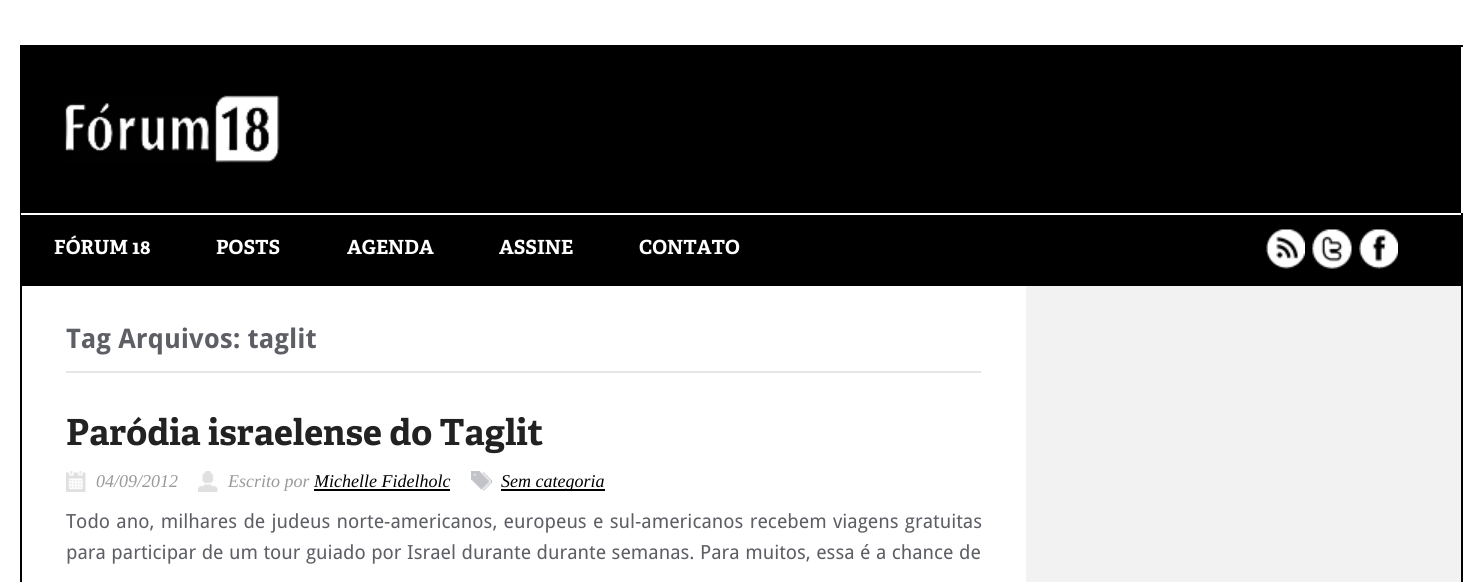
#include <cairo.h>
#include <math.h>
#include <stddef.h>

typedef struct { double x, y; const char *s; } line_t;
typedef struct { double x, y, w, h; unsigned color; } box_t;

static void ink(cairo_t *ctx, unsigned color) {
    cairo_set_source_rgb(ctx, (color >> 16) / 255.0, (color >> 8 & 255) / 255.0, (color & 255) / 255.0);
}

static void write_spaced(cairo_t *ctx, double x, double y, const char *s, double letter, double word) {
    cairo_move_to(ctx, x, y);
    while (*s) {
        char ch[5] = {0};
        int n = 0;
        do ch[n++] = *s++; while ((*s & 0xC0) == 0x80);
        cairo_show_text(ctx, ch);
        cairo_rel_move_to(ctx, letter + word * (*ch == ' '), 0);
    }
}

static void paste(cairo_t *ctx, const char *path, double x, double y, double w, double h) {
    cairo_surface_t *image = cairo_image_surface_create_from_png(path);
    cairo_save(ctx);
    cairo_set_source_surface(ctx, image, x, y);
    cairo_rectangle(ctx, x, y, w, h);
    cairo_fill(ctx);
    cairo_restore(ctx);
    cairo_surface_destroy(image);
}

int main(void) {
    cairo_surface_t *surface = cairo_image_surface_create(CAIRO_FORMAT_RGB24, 1481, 582);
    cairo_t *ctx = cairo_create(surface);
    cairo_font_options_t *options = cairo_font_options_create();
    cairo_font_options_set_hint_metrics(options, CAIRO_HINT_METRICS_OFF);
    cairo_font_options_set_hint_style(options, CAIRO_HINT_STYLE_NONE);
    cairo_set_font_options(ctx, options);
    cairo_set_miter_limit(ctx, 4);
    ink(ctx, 0xFFFFFF);
    cairo_paint(ctx);
    cairo_rectangle(ctx, 21, 46, 1441, 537);
    ink(ctx, 0x000000);
    cairo_stroke(ctx);
    {
        static const box_t items[] = {
            {21, 284, 1440, 2, 0x000000},
            {22, 47, 1439, 166, 0x000000},
            {1461, 47, 2, 166, 0xFFFFFF},
        };
        for (size_t i = 0; i < sizeof items / sizeof *items; i++) {
            ink(ctx, items[i].color);
            cairo_rectangle(ctx, items[i].x, items[i].y, items[i].w, items[i].h);
            cairo_fill(ctx);
        }
    }
    paste(ctx, "media/1.png", 65, 95, 215, 68);
    ink(ctx, 0x000000);
    cairo_rectangle(ctx, 22, 215, 1439, 69);
    cairo_fill(ctx);
    ink(ctx, 0xFFFFFF);
    cairo_rectangle(ctx, 21, 213, 1, 2);
    cairo_fill(ctx);
    cairo_select_font_face(ctx, "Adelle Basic", CAIRO_FONT_SLANT_NORMAL, CAIRO_FONT_WEIGHT_BOLD);
    cairo_set_font_size(ctx, 19.5);
    {
        static const line_t items[] = {
            {54, 254, "FÓRUM 18"},
            {216, 254, "POSTS"},
            {347, 254, "AGENDA"},
            {499, 254, "ASSINE"},
            {639, 254, "CONTATO"},
        };
        for (size_t i = 0; i < sizeof items / sizeof *items; i++) {
            cairo_move_to(ctx, items[i].x, items[i].y);
            cairo_show_text(ctx, items[i].s);
        }
    }
    paste(ctx, "media/2.png", 1266, 229, 39, 40);
    paste(ctx, "media/3.png", 1312, 229, 40, 40);
    paste(ctx, "media/4.png", 1359, 229, 39, 40);
    ink(ctx, 0xE6E6E6);
    cairo_rectangle(ctx, 66, 371, 915, 2);
    cairo_fill(ctx);
    cairo_select_font_face(ctx, "Droid Sans", CAIRO_FONT_SLANT_NORMAL, CAIRO_FONT_WEIGHT_BOLD);
    cairo_set_font_size(ctx, 27);
    ink(ctx, 0x5D5F65);
    cairo_move_to(ctx, 66, 348);
    cairo_show_text(ctx, "Tag Arquivos: taglit");
    cairo_select_font_face(ctx, "Adelle Basic", CAIRO_FONT_SLANT_NORMAL, CAIRO_FONT_WEIGHT_BOLD);
    cairo_set_font_size(ctx, 36);
    ink(ctx, 0x222222);
    cairo_move_to(ctx, 66, 445);
    cairo_show_text(ctx, "Paródia israelense do Taglit");
    paste(ctx, "media/5.png", 66, 471, 20, 21);
    cairo_select_font_face(ctx, "Liberation Serif", CAIRO_FONT_SLANT_ITALIC, CAIRO_FONT_WEIGHT_NORMAL);
    cairo_set_font_size(ctx, 18);
    ink(ctx, 0x999999);
    cairo_move_to(ctx, 96, 487);
    cairo_show_text(ctx, "04/09/2012");
    paste(ctx, "media/6.png", 198, 471, 20, 21);
    cairo_move_to(ctx, 228, 487);
    cairo_show_text(ctx, "Escrito por");
    ink(ctx, 0x000000);
    cairo_rectangle(ctx, 314, 489, 136, 2);
    cairo_fill(ctx);
    cairo_move_to(ctx, 314, 487);
    cairo_show_text(ctx, "Michelle Fidelholc");
    paste(ctx, "media/7.png", 471, 471, 21, 20);
    cairo_rectangle(ctx, 501, 489, 104, 2);
    cairo_fill(ctx);
    cairo_move_to(ctx, 501, 487);
    cairo_show_text(ctx, "Sem categoria");
    cairo_select_font_face(ctx, "Droid Sans", CAIRO_FONT_SLANT_NORMAL, CAIRO_FONT_WEIGHT_NORMAL);
    cairo_set_font_size(ctx, 19.5);
    ink(ctx, 0x5D5F65);
    write_spaced(ctx, 66, 528, "Todo ano, milhares de judeus norte-americanos, europeus e sul-americanos recebem viagens gratuitas", 0, 1.25);
    write_spaced(ctx, 66, 559, "para participar de um tour guiado por Israel durante durante semanas. Para muitos, essa é a chance de", 0, 0.4);
    ink(ctx, 0xF2F2F2);
    cairo_rectangle(ctx, 1026, 286, 435, 296);
    cairo_fill(ctx);
    cairo_surface_write_to_png(surface, "image.png");
    cairo_font_options_destroy(options);
    cairo_destroy(ctx);
    cairo_surface_destroy(surface);
    return 0;
}
